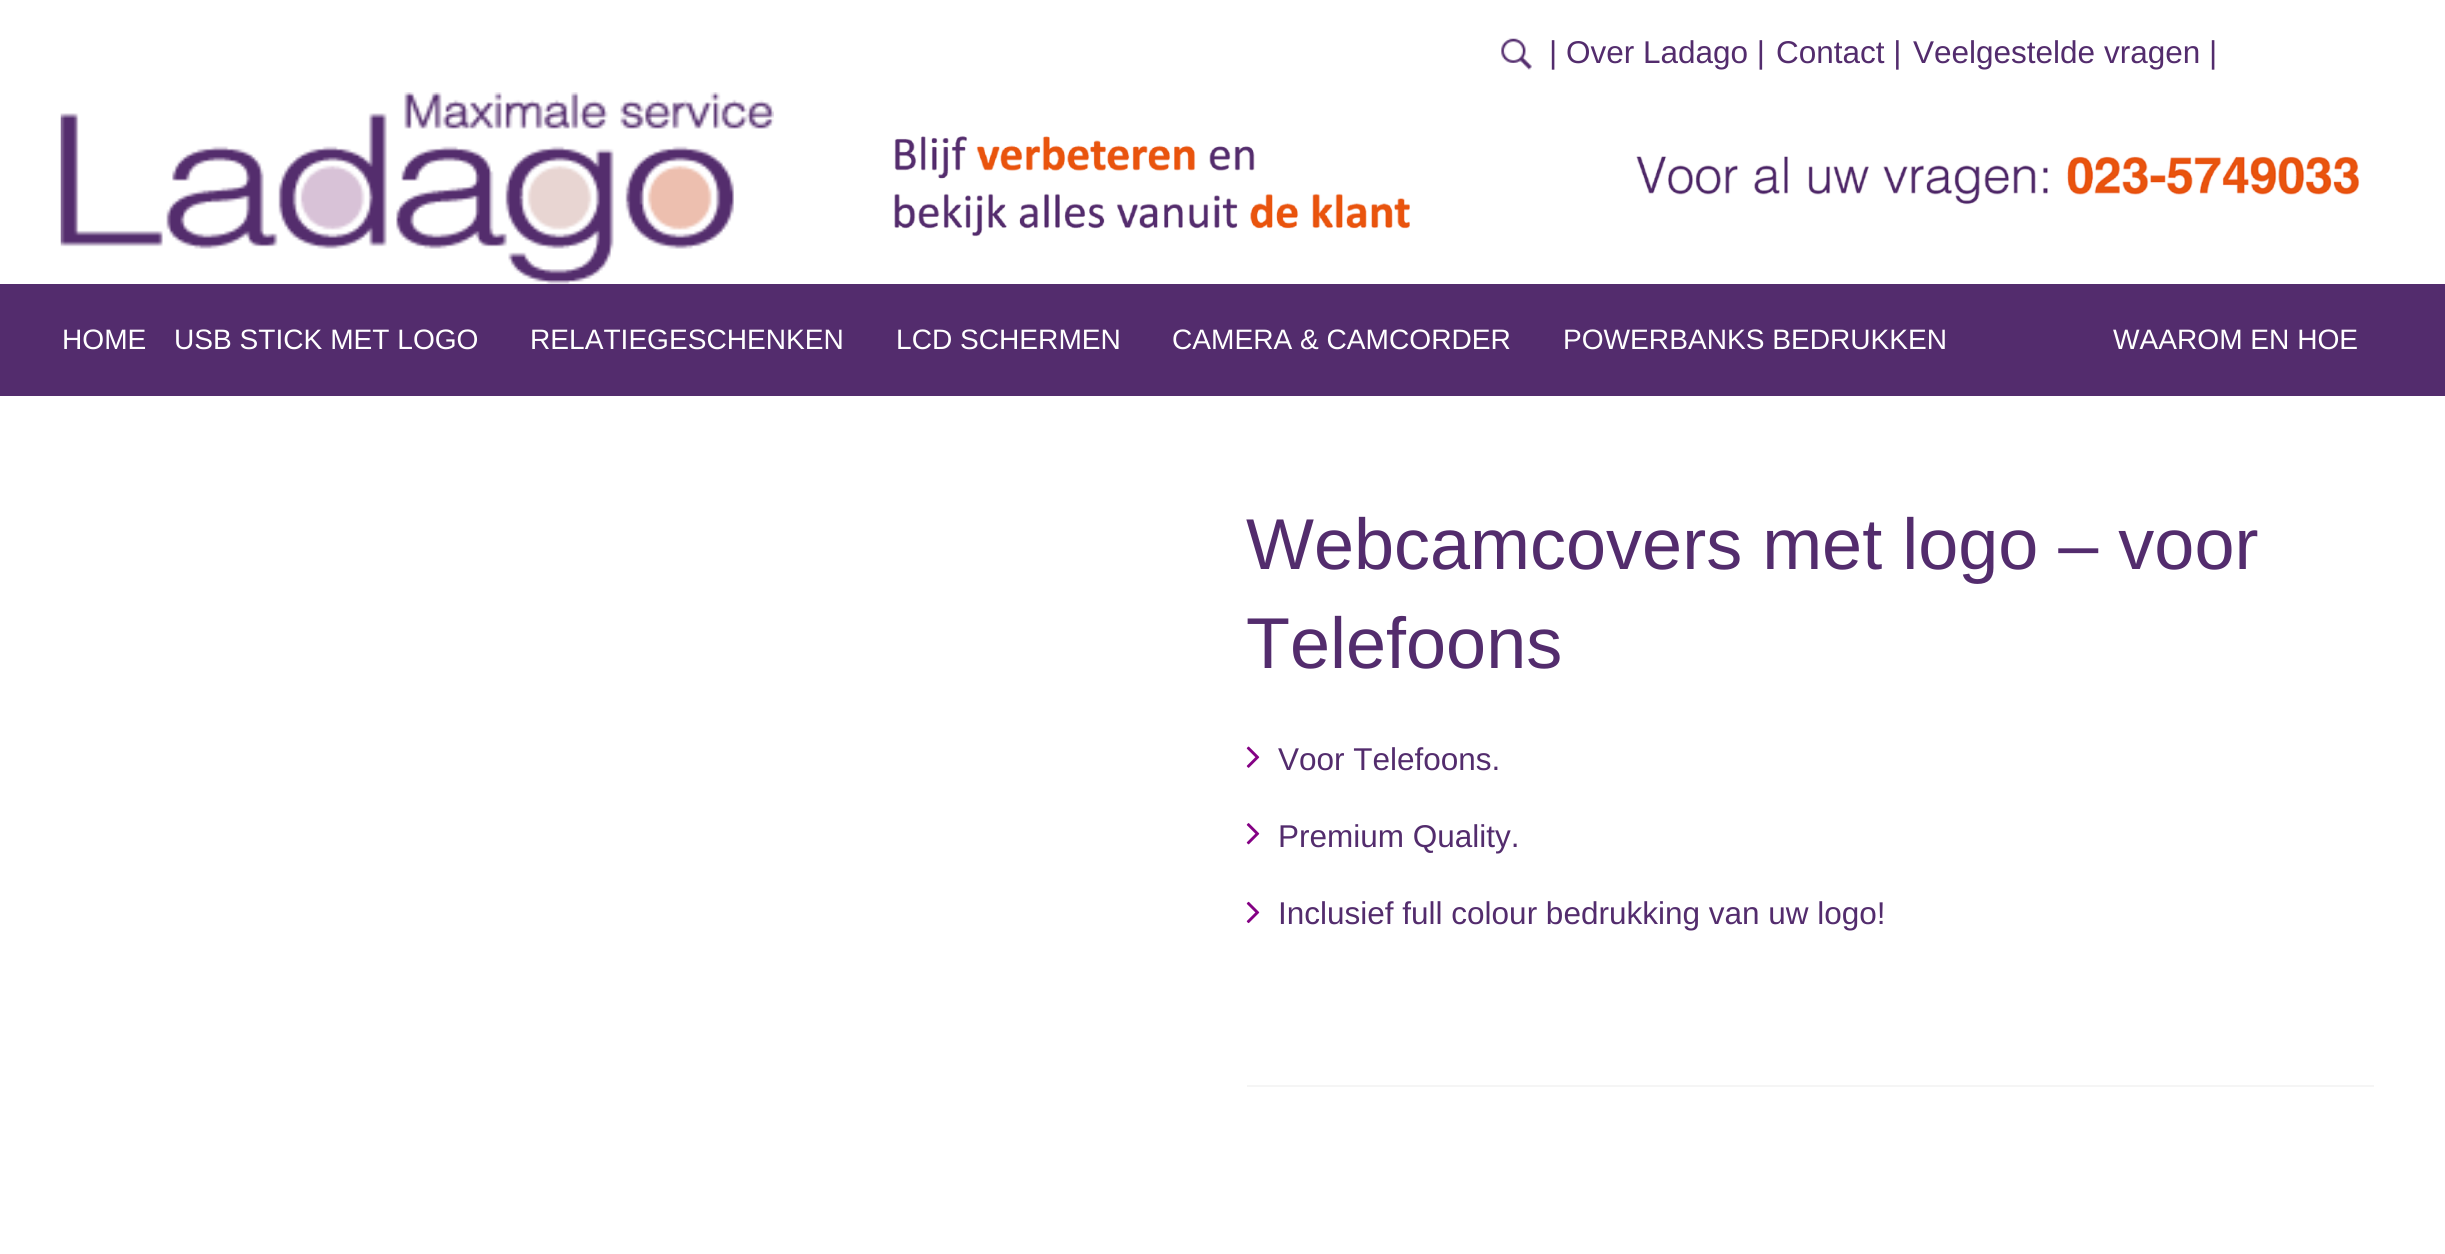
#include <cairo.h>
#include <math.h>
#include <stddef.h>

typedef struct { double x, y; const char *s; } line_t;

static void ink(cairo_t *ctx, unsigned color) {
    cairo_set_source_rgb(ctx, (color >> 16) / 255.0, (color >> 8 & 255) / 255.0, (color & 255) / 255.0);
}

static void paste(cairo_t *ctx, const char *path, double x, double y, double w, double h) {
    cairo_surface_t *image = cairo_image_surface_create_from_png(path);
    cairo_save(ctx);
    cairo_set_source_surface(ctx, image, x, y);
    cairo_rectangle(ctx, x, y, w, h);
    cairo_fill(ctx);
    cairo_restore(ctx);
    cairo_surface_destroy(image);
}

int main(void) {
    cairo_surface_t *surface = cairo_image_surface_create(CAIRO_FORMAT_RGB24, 2445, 1254);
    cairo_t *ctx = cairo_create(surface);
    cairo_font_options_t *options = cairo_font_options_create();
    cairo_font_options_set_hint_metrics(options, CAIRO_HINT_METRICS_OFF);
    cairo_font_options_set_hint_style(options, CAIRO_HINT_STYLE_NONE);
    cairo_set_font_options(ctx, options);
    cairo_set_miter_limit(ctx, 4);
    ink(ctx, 0xFFFFFF);
    cairo_paint(ctx);
    paste(ctx, "media/1.png", 1501, 38, 31, 32);
    cairo_select_font_face(ctx, "Liberation Sans", CAIRO_FONT_SLANT_NORMAL, CAIRO_FONT_WEIGHT_NORMAL);
    cairo_set_font_size(ctx, 31.5);
    ink(ctx, 0x532C6D);
    {
        static const line_t items[] = {
            {1549, 63, "| Over Ladago |"},
            {1776, 63, "Contact |"},
            {1913, 63, "Veelgestelde vragen |"},
        };
        for (size_t i = 0; i < sizeof items / sizeof *items; i++) {
            cairo_move_to(ctx, items[i].x, items[i].y);
            cairo_show_text(ctx, items[i].s);
        }
    }
    paste(ctx, "media/2.png", 60, 92, 714, 192);
    paste(ctx, "media/3.png", 894, 136, 516, 101);
    paste(ctx, "media/4.png", 1636, 156, 724, 49);
    cairo_rectangle(ctx, 0, 284, 2445, 112);
    cairo_fill(ctx);
    cairo_set_font_size(ctx, 28.1);
    ink(ctx, 0xFFFFFF);
    {
        static const line_t items[] = {
            {62, 349, "HOME"},
            {174, 349, "USB STICK MET LOGO"},
            {530, 349, "RELATIEGESCHENKEN"},
            {896, 349, "LCD SCHERMEN"},
            {1172, 349, "CAMERA & CAMCORDER"},
            {1563, 349, "POWERBANKS BEDRUKKEN"},
            {2113, 349, "WAAROM EN HOE"},
        };
        for (size_t i = 0; i < sizeof items / sizeof *items; i++) {
            cairo_move_to(ctx, items[i].x, items[i].y);
            cairo_show_text(ctx, items[i].s);
        }
    }
    cairo_set_font_size(ctx, 72);
    ink(ctx, 0x532C6D);
    cairo_move_to(ctx, 1246, 569);
    cairo_show_text(ctx, "Webcamcovers met logo – voor");
    cairo_move_to(ctx, 1246, 668);
    cairo_show_text(ctx, "Telefoons");
    paste(ctx, "media/5.png", 1246, 746, 14, 22);
    cairo_set_font_size(ctx, 31.5);
    cairo_move_to(ctx, 1278, 770);
    cairo_show_text(ctx, "Voor Telefoons.");
    paste(ctx, "media/6.png", 1246, 823, 14, 22);
    cairo_move_to(ctx, 1278, 847);
    cairo_show_text(ctx, "Premium Quality.");
    paste(ctx, "media/7.png", 1246, 901, 14, 23);
    cairo_move_to(ctx, 1278, 924);
    cairo_show_text(ctx, "Inclusief full colour bedrukking van uw logo!");
    ink(ctx, 0xF5F5F5);
    cairo_rectangle(ctx, 1247, 1085, 1127, 2);
    cairo_fill(ctx);
    cairo_surface_write_to_png(surface, "image.png");
    cairo_font_options_destroy(options);
    cairo_destroy(ctx);
    cairo_surface_destroy(surface);
    return 0;
}
